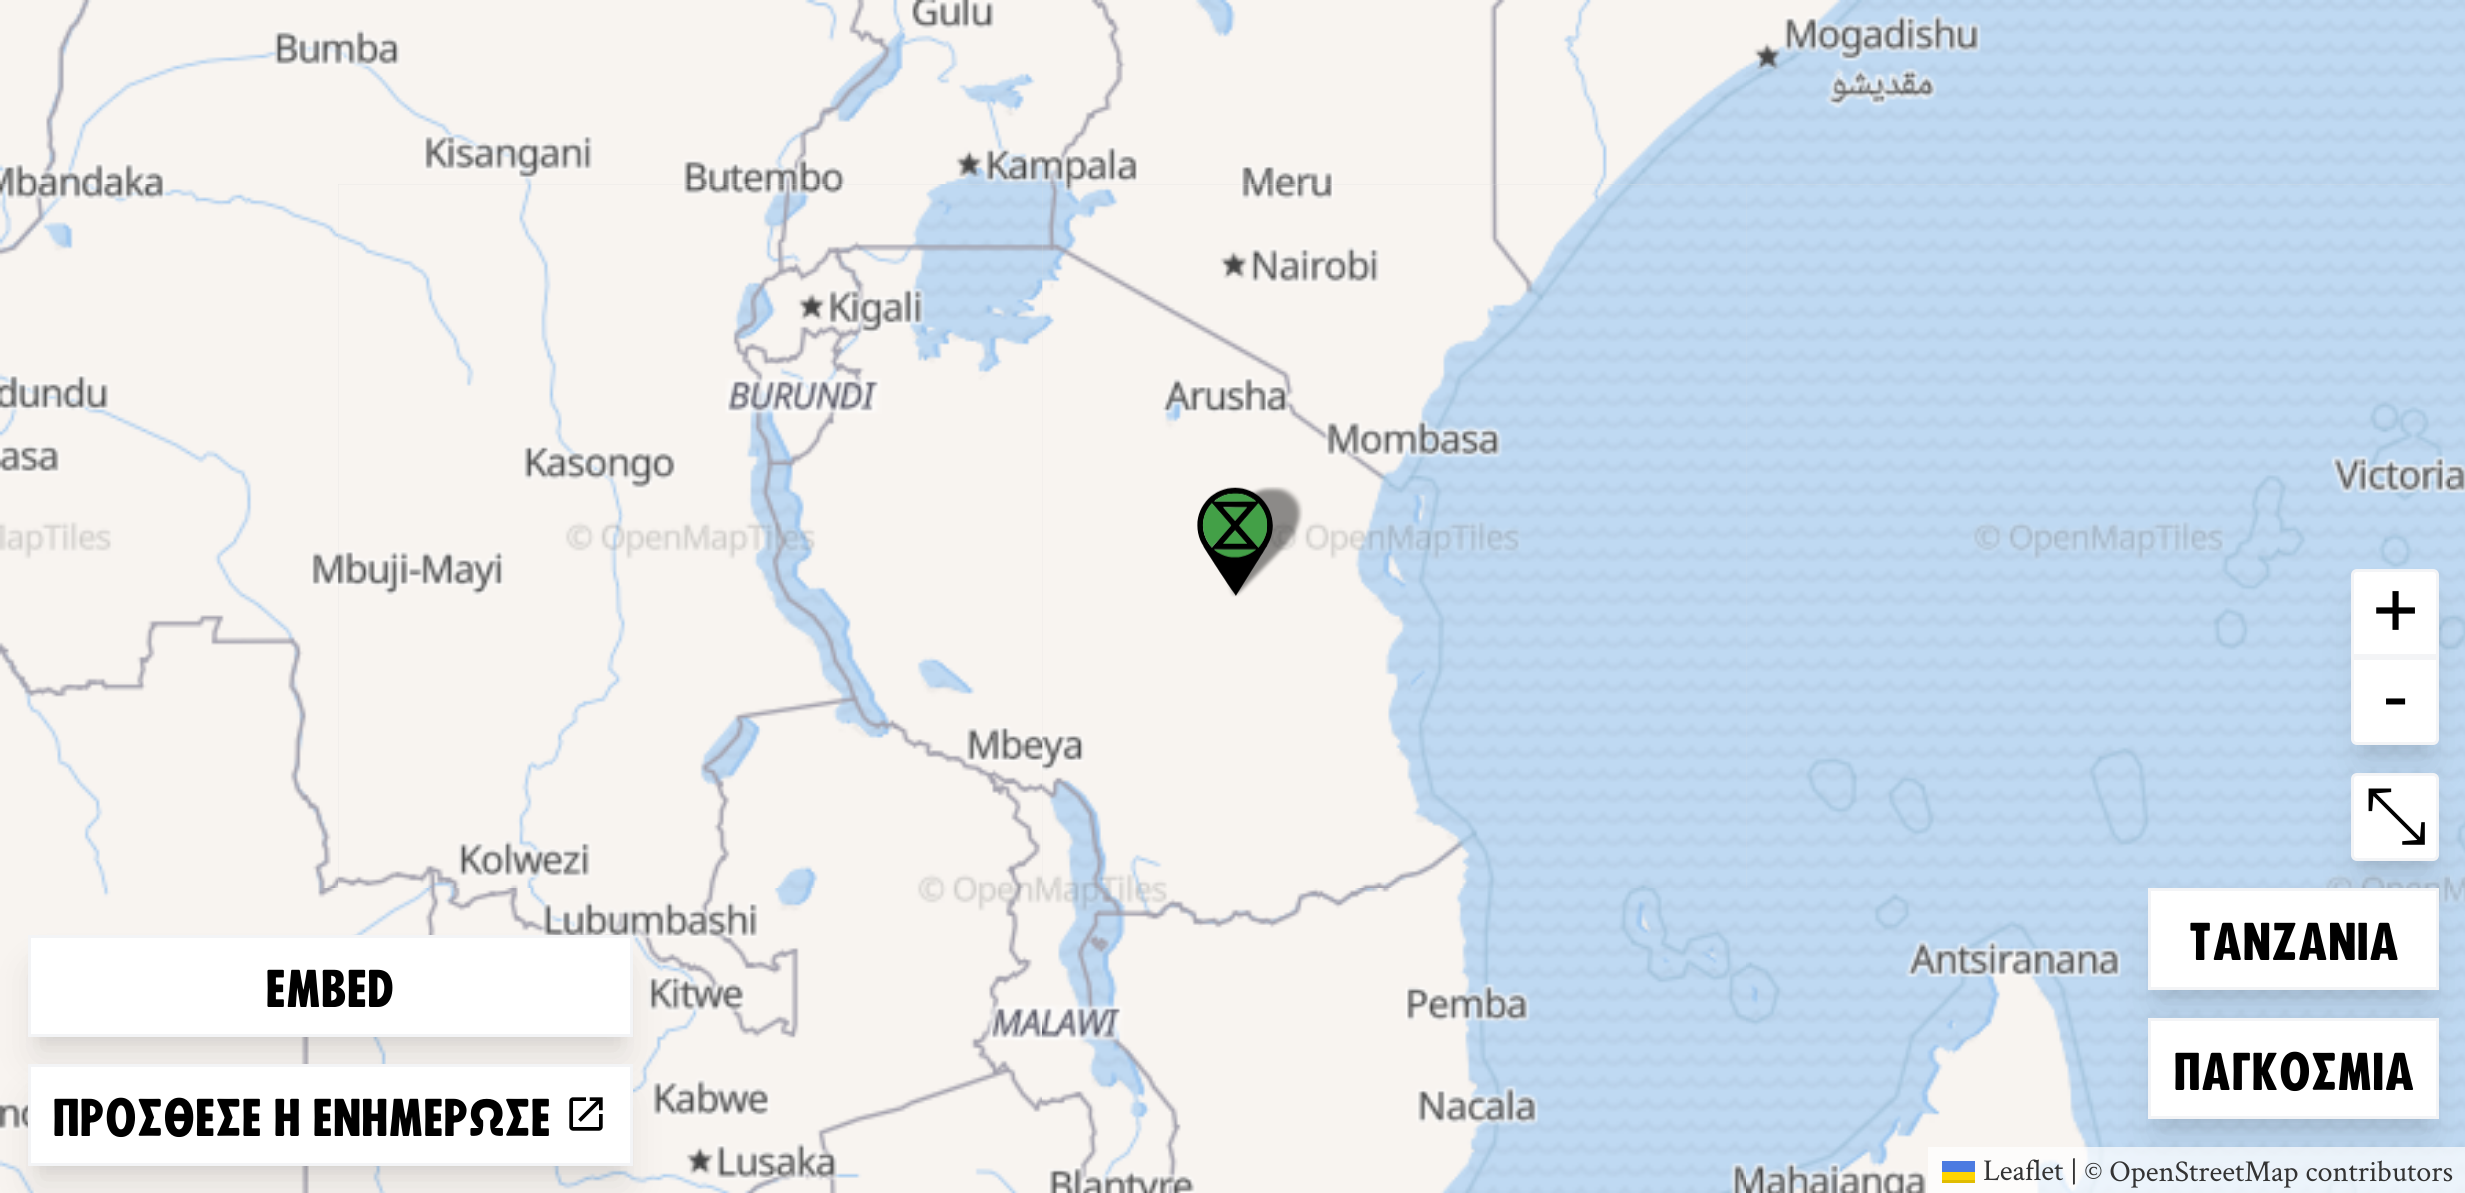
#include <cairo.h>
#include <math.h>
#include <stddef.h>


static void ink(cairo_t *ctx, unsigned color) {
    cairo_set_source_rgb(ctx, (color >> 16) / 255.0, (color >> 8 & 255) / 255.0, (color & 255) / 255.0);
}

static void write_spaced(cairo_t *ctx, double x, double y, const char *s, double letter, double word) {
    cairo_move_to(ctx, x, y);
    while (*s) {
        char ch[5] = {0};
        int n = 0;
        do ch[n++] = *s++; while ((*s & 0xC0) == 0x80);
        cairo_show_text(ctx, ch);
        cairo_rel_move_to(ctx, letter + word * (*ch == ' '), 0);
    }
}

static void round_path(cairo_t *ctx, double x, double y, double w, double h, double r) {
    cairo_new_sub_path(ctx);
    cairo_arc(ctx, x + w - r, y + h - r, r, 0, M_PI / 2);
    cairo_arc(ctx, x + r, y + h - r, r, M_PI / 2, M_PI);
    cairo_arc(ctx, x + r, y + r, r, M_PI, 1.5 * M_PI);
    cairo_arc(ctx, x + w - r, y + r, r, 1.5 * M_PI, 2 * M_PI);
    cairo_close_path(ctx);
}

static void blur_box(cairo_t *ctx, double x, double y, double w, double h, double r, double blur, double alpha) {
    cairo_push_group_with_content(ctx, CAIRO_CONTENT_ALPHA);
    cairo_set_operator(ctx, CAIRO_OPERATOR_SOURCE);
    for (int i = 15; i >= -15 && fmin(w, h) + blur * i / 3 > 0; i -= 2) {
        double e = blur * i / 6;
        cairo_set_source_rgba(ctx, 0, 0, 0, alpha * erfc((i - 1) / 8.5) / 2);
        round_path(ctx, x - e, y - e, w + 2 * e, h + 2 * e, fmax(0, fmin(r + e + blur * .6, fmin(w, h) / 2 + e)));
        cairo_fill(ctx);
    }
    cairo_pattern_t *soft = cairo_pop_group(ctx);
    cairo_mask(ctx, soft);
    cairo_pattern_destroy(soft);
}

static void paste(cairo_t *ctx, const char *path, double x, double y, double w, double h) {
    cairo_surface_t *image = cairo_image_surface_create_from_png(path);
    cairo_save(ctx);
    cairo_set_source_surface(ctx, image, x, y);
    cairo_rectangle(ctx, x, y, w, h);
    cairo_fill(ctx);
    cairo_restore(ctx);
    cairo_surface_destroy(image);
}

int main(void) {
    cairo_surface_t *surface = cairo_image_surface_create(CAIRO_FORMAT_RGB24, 2465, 1193);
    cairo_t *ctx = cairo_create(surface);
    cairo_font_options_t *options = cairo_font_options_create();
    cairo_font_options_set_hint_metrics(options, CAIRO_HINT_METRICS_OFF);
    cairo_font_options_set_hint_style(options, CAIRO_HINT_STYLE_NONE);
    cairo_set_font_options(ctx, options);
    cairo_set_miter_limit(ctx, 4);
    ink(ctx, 0xDDDDDD);
    cairo_paint(ctx);
    paste(ctx, "media/1.png", 0, 0, 338, 184);
    paste(ctx, "media/2.png", 338, 0, 704, 184);
    paste(ctx, "media/3.png", 1042, 0, 704, 184);
    paste(ctx, "media/4.png", 1746, 0, 704, 184);
    paste(ctx, "media/5.png", 2450, 0, 15, 184);
    paste(ctx, "media/6.png", 0, 184, 338, 704);
    paste(ctx, "media/8.png", 1042, 184, 705, 704);
    paste(ctx, "media/7.png", 338, 184, 705, 704);
    paste(ctx, "media/9.png", 1746, 184, 704, 704);
    paste(ctx, "media/10.png", 2450, 184, 15, 704);
    paste(ctx, "media/11.png", 0, 888, 338, 305);
    paste(ctx, "media/12.png", 338, 888, 704, 305);
    paste(ctx, "media/13.png", 1042, 888, 704, 305);
    paste(ctx, "media/14.png", 1746, 888, 704, 305);
    paste(ctx, "media/15.png", 2450, 888, 15, 305);
    paste(ctx, "media/16.png", 1197, 486, 106, 111);
    ink(ctx, 0x000000);
    blur_box(ctx, 39, 957, 583, 80, 0, 8, 0.1);
    blur_box(ctx, 36, 971, 588, 85, 0, 20.5, 0.1);
    ink(ctx, 0xFFFFFF);
    cairo_rectangle(ctx, 29.5, 936.5, 602, 99);
    cairo_fill_preserve(ctx);
    ink(ctx, 0xF3F4F6);
    cairo_set_line_width(ctx, 3);
    cairo_stroke(ctx);
    cairo_select_font_face(ctx, "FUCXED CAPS", CAIRO_FONT_SLANT_NORMAL, CAIRO_FONT_WEIGHT_NORMAL);
    cairo_set_font_size(ctx, 49.5);
    ink(ctx, 0x000000);
    write_spaced(ctx, 265, 1007, "EMBED", -1.25, 0);
    ink(ctx, 0x000000);
    blur_box(ctx, 39, 1086, 583, 80, 0, 8, 0.1);
    blur_box(ctx, 36, 1100, 588, 85, 0, 20.5, 0.1);
    ink(ctx, 0xFFFFFF);
    cairo_rectangle(ctx, 29.5, 1065.5, 602, 99);
    cairo_fill_preserve(ctx);
    ink(ctx, 0xF3F4F6);
    cairo_stroke(ctx);
    ink(ctx, 0x000000);
    write_spaced(ctx, 52, 1136, "ΠΡΟΣΘΕΣΕ Ή ΕΝΗΜΕΡΩΣΕ", -1.25, 0);
    paste(ctx, "media/17.png", 569, 1097, 34, 34);
    ink(ctx, 0x000000);
    blur_box(ctx, 2362, 591, 66, 154, 0, 8, 0.1);
    blur_box(ctx, 2360, 605, 71, 160, 0, 20.5, 0.1);
    ink(ctx, 0xFFFFFF);
    cairo_new_path(ctx);
    cairo_move_to(ctx, 2357, 570.5);
    cairo_line_to(ctx, 2433, 570.5);
    cairo_curve_to(ctx, 2435.5, 570.5, 2437.5, 572.5, 2437.5, 575);
    cairo_line_to(ctx, 2437.5, 655.5);
    cairo_line_to(ctx, 2352.5, 655.5);
    cairo_line_to(ctx, 2352.5, 575);
    cairo_curve_to(ctx, 2352.5, 572.5, 2354.5, 570.5, 2357, 570.5);
    cairo_close_path(ctx);
    cairo_fill_preserve(ctx);
    ink(ctx, 0xF3F4F6);
    cairo_stroke(ctx);
    cairo_select_font_face(ctx, "DejaVu Sans Mono", CAIRO_FONT_SLANT_NORMAL, CAIRO_FONT_WEIGHT_NORMAL);
    cairo_set_font_size(ctx, 75);
    ink(ctx, 0x000000);
    cairo_move_to(ctx, 2373, 634);
    cairo_show_text(ctx, "+");
    ink(ctx, 0xFFFFFF);
    cairo_new_path(ctx);
    cairo_move_to(ctx, 2352.5, 658.5);
    cairo_line_to(ctx, 2437.5, 658.5);
    cairo_line_to(ctx, 2437.5, 739);
    cairo_curve_to(ctx, 2437.5, 741.5, 2435.5, 743.5, 2433, 743.5);
    cairo_line_to(ctx, 2357, 743.5);
    cairo_curve_to(ctx, 2354.5, 743.5, 2352.5, 741.5, 2352.5, 739);
    cairo_close_path(ctx);
    cairo_fill_preserve(ctx);
    ink(ctx, 0xF3F4F6);
    cairo_stroke(ctx);
    ink(ctx, 0x000000);
    cairo_move_to(ctx, 2373, 722);
    cairo_show_text(ctx, "-");
    ink(ctx, 0x000000);
    blur_box(ctx, 2362, 795, 66, 66, 0, 8, 0.1);
    blur_box(ctx, 2360, 809, 71, 71, 0, 20.5, 0.1);
    ink(ctx, 0xFFFFFF);
    round_path(ctx, 2352.5, 774.5, 85, 85, 4.5);
    cairo_fill_preserve(ctx);
    ink(ctx, 0xF3F4F6);
    cairo_stroke(ctx);
    cairo_select_font_face(ctx, "FreeSerif", CAIRO_FONT_SLANT_NORMAL, CAIRO_FONT_WEIGHT_NORMAL);
    cairo_set_font_size(ctx, 79);
    ink(ctx, 0x000000);
    cairo_move_to(ctx, 2364, 842);
    cairo_show_text(ctx, "⤡");
    ink(ctx, 0x000000);
    blur_box(ctx, 2159, 910, 269, 80, 0, 8, 0.1);
    blur_box(ctx, 2156, 924, 275, 85, 0, 20.5, 0.1);
    ink(ctx, 0xFFFFFF);
    cairo_rectangle(ctx, 2149.5, 889.5, 288, 99);
    cairo_fill_preserve(ctx);
    ink(ctx, 0xF3F4F6);
    cairo_stroke(ctx);
    cairo_select_font_face(ctx, "FUCXED CAPS", CAIRO_FONT_SLANT_NORMAL, CAIRO_FONT_WEIGHT_NORMAL);
    cairo_set_font_size(ctx, 49.5);
    ink(ctx, 0x000000);
    write_spaced(ctx, 2188, 960, "TANZANIA", -1.25, 0);
    ink(ctx, 0x000000);
    blur_box(ctx, 2159, 1040, 269, 79, 0, 8, 0.1);
    blur_box(ctx, 2156, 1053, 275, 86, 0, 20.5, 0.1);
    ink(ctx, 0xFFFFFF);
    cairo_rectangle(ctx, 2149.5, 1019.5, 288, 98);
    cairo_fill_preserve(ctx);
    ink(ctx, 0xF3F4F6);
    cairo_stroke(ctx);
    ink(ctx, 0x000000);
    write_spaced(ctx, 2173, 1090, "ΠΑΓΚΟΣΜΙΑ", -1.25, 0);
    cairo_set_source_rgba(ctx, 1, 1, 1, 0.7);
    cairo_rectangle(ctx, 1928, 1147, 537, 46);
    cairo_fill(ctx);
    ink(ctx, 0x4C7BE1);
    cairo_rectangle(ctx, 1942, 1161, 33, 11);
    cairo_fill(ctx);
    ink(ctx, 0xFFD500);
    cairo_rectangle(ctx, 1942, 1172, 33, 8);
    cairo_fill(ctx);
    ink(ctx, 0xE0BC00);
    cairo_rectangle(ctx, 1942, 1180, 33, 3);
    cairo_fill(ctx);
    cairo_select_font_face(ctx, "Crimson Text", CAIRO_FONT_SLANT_NORMAL, CAIRO_FONT_WEIGHT_NORMAL);
    cairo_set_font_size(ctx, 30.25);
    ink(ctx, 0x333333);
    cairo_move_to(ctx, 1983, 1180);
    cairo_show_text(ctx, "Leaflet");
    cairo_move_to(ctx, 2070, 1181);
    cairo_show_text(ctx, "| © OpenStreetMap contributors");
    cairo_surface_write_to_png(surface, "image.png");
    cairo_font_options_destroy(options);
    cairo_destroy(ctx);
    cairo_surface_destroy(surface);
    return 0;
}
